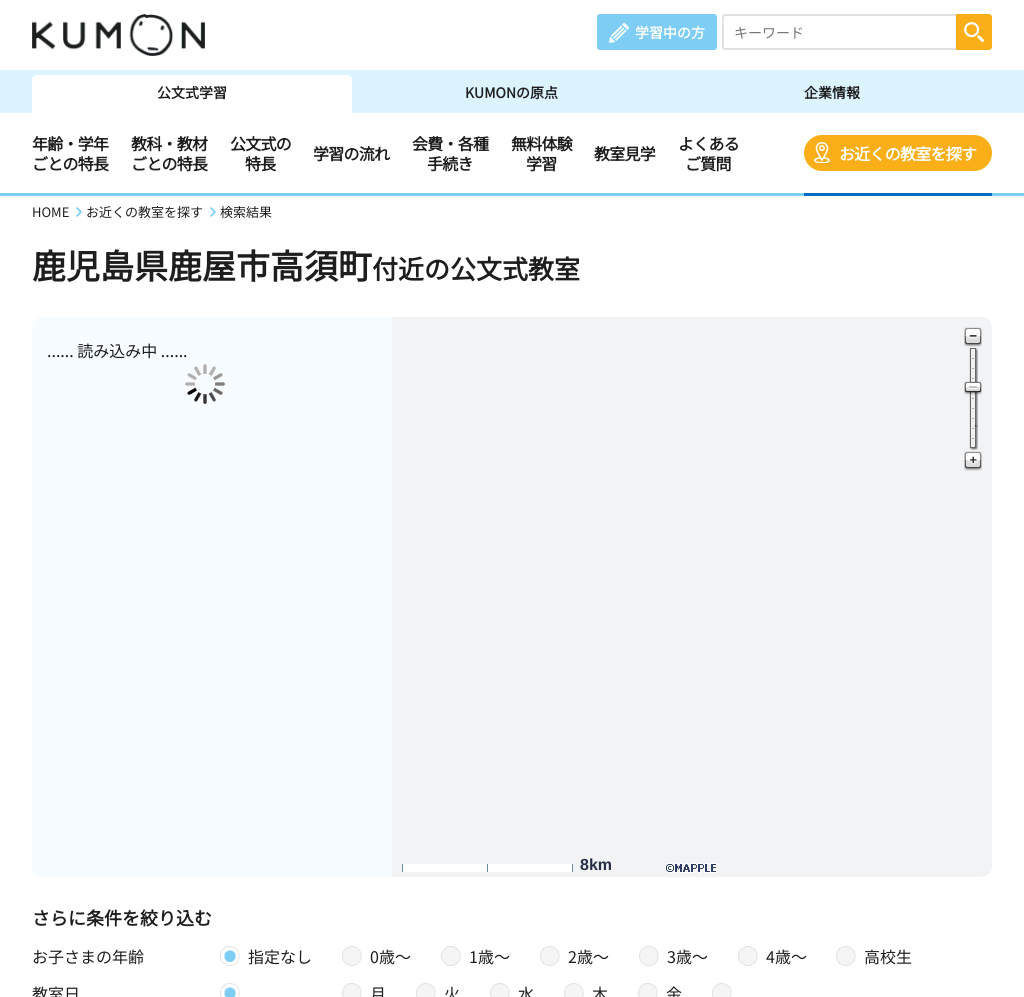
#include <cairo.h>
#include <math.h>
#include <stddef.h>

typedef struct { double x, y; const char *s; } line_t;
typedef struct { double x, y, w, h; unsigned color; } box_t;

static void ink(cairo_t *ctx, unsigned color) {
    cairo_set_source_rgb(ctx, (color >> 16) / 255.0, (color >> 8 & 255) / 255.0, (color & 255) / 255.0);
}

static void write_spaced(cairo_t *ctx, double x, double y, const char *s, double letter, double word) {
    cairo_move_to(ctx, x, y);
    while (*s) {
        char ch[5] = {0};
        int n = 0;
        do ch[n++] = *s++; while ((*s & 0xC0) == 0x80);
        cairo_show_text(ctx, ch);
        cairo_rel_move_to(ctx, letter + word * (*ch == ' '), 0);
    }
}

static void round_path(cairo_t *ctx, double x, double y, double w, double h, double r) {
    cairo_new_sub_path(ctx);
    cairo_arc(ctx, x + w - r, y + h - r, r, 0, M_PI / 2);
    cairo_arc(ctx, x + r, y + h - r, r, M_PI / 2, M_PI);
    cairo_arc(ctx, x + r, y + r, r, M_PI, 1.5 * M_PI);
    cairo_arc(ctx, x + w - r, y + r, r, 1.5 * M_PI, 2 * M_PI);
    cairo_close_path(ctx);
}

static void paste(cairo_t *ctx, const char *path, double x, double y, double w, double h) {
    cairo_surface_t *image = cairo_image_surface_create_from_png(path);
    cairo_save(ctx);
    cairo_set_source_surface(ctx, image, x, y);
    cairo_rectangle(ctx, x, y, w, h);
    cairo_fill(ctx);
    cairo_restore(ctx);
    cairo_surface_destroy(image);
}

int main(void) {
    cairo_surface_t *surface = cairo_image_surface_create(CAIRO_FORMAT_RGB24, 1024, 997);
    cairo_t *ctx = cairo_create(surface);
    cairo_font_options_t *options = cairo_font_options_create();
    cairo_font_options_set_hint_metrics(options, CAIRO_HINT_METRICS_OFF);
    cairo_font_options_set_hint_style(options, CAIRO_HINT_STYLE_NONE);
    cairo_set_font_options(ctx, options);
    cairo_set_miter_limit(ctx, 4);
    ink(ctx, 0xFFFFFF);
    cairo_paint(ctx);
    paste(ctx, "media/1.png", 32, 14, 173, 42);
    ink(ctx, 0x7DCDF4);
    round_path(ctx, 597, 14, 120, 36, 3);
    cairo_fill(ctx);
    paste(ctx, "media/2.png", 609, 23, 20, 20);
    cairo_select_font_face(ctx, "Noto Sans JP", CAIRO_FONT_SLANT_NORMAL, CAIRO_FONT_WEIGHT_BOLD);
    cairo_set_font_size(ctx, 14);
    ink(ctx, 0xFFFFFF);
    cairo_move_to(ctx, 635, 38);
    cairo_show_text(ctx, "学習中の方");
    ink(ctx, 0xE1E1E1);
    cairo_set_fill_rule(ctx, CAIRO_FILL_RULE_EVEN_ODD);
    cairo_new_path(ctx);
    cairo_move_to(ctx, 725, 14);
    cairo_line_to(ctx, 956, 14);
    cairo_line_to(ctx, 956, 50);
    cairo_line_to(ctx, 725, 50);
    cairo_curve_to(ctx, 723, 50, 722, 49, 722, 47);
    cairo_line_to(ctx, 722, 17);
    cairo_curve_to(ctx, 722, 15, 723, 14, 725, 14);
    cairo_close_path(ctx);
    cairo_move_to(ctx, 725, 16);
    cairo_line_to(ctx, 956, 16);
    cairo_line_to(ctx, 956, 48);
    cairo_line_to(ctx, 725, 48);
    cairo_line_to(ctx, 724, 48);
    cairo_line_to(ctx, 724, 27);
    cairo_curve_to(ctx, 724, 26, 723, 16, 725, 16);
    cairo_close_path(ctx);
    cairo_fill(ctx);
    cairo_select_font_face(ctx, "Noto Sans JP Thin", CAIRO_FONT_SLANT_NORMAL, CAIRO_FONT_WEIGHT_NORMAL);
    ink(ctx, 0x757575);
    cairo_move_to(ctx, 734, 38);
    cairo_show_text(ctx, "キーワード");
    ink(ctx, 0xFAAF18);
    cairo_new_path(ctx);
    cairo_move_to(ctx, 956, 14);
    cairo_line_to(ctx, 989, 14);
    cairo_curve_to(ctx, 990.5, 14, 992, 15.5, 992, 17);
    cairo_line_to(ctx, 992, 47);
    cairo_curve_to(ctx, 992, 48.5, 990.5, 50, 989, 50);
    cairo_line_to(ctx, 956, 50);
    cairo_close_path(ctx);
    cairo_fill(ctx);
    paste(ctx, "media/3.png", 964, 22, 20, 20);
    ink(ctx, 0xDCF4FF);
    cairo_rectangle(ctx, 0, 70, 1024, 43);
    cairo_fill(ctx);
    ink(ctx, 0xFFFFFF);
    cairo_new_path(ctx);
    cairo_move_to(ctx, 37, 75);
    cairo_line_to(ctx, 347, 75);
    cairo_curve_to(ctx, 350, 75, 352, 77, 352, 80);
    cairo_line_to(ctx, 352, 113);
    cairo_line_to(ctx, 32, 113);
    cairo_line_to(ctx, 32, 80);
    cairo_curve_to(ctx, 32, 77, 34, 75, 37, 75);
    cairo_close_path(ctx);
    cairo_fill(ctx);
    cairo_select_font_face(ctx, "Noto Sans JP", CAIRO_FONT_SLANT_NORMAL, CAIRO_FONT_WEIGHT_BOLD);
    ink(ctx, 0x1E1E1E);
    {
        static const line_t items[] = {
            {157, 98, "公文式学習"},
            {465, 98, "KUMONの原点"},
            {804, 98, "企業情報"},
        };
        for (size_t i = 0; i < sizeof items / sizeof *items; i++) {
            cairo_move_to(ctx, items[i].x, items[i].y);
            cairo_show_text(ctx, items[i].s);
        }
    }
    ink(ctx, 0x7DCDF4);
    cairo_rectangle(ctx, 0, 193, 1024, 3);
    cairo_fill(ctx);
    cairo_set_font_size(ctx, 16);
    ink(ctx, 0x1E1E1E);
    {
        static const line_t items[] = {
            {32, 150, "年齢・学年"},
            {32, 170, "ごとの特長"},
            {131, 150, "教科・教材"},
            {131, 170, "ごとの特長"},
            {230, 150, "公文式の"},
            {245, 170, "特長"},
            {313, 160, "学習の流れ"},
            {412, 150, "会費・各種"},
            {427, 170, "手続き"},
            {511, 150, "無料体験"},
            {526, 170, "学習"},
            {594, 160, "教室見学"},
            {678, 150, "よくある"},
            {685, 170, "ご質問"},
        };
        for (size_t i = 0; i < sizeof items / sizeof *items; i++) {
            write_spaced(ctx, items[i].x, items[i].y, items[i].s, -0.75, 0);
        }
    }
    ink(ctx, 0xFAAF18);
    round_path(ctx, 804, 135, 188, 36, 18);
    cairo_fill(ctx);
    paste(ctx, "media/4.png", 814, 142, 16, 21);
    ink(ctx, 0xFFFFFF);
    write_spaced(ctx, 839, 160, "お近くの教室を探す", -0.75, 0);
    ink(ctx, 0x006CBF);
    cairo_rectangle(ctx, 804, 193, 188, 3);
    cairo_fill(ctx);
    cairo_select_font_face(ctx, "Noto Sans JP Thin", CAIRO_FONT_SLANT_NORMAL, CAIRO_FONT_WEIGHT_NORMAL);
    cairo_set_font_size(ctx, 13);
    ink(ctx, 0x1E1E1E);
    cairo_move_to(ctx, 32, 217);
    cairo_show_text(ctx, "HOME");
    paste(ctx, "media/5.png", 76, 207, 6, 10);
    cairo_move_to(ctx, 86, 217);
    cairo_show_text(ctx, "お近くの教室を探す");
    paste(ctx, "media/5.png", 210, 207, 6, 10);
    cairo_move_to(ctx, 220, 217);
    cairo_show_text(ctx, "検索結果");
    cairo_select_font_face(ctx, "Noto Sans JP", CAIRO_FONT_SLANT_NORMAL, CAIRO_FONT_WEIGHT_BOLD);
    cairo_set_font_size(ctx, 34);
    cairo_move_to(ctx, 32, 279);
    cairo_show_text(ctx, "鹿児島県鹿屋市高須町");
    cairo_set_font_size(ctx, 26);
    cairo_move_to(ctx, 372, 279);
    cairo_show_text(ctx, "付近の公文式教室");
    ink(ctx, 0xF6FCFF);
    cairo_new_path(ctx);
    cairo_move_to(ctx, 42, 317);
    cairo_line_to(ctx, 392, 317);
    cairo_line_to(ctx, 392, 877);
    cairo_line_to(ctx, 42, 877);
    cairo_curve_to(ctx, 36.5, 877, 32, 872.5, 32, 867);
    cairo_line_to(ctx, 32, 327);
    cairo_curve_to(ctx, 32, 321.5, 36.5, 317, 42, 317);
    cairo_close_path(ctx);
    cairo_fill(ctx);
    cairo_select_font_face(ctx, "Noto Sans JP Thin", CAIRO_FONT_SLANT_NORMAL, CAIRO_FONT_WEIGHT_NORMAL);
    cairo_set_font_size(ctx, 16);
    ink(ctx, 0x1E1E1E);
    cairo_move_to(ctx, 47, 357);
    cairo_show_text(ctx, "...... 読み込み中 ......");
    paste(ctx, "media/6.png", 185, 364, 40, 40);
    paste(ctx, "media/7.png", 392, 317, 600, 560);
    paste(ctx, "media/8.png", 964, 327, 18, 20);
    paste(ctx, "media/9.png", 969, 348, 9, 102);
    paste(ctx, "media/10.png", 964, 381, 18, 14);
    paste(ctx, "media/11.png", 964, 451, 18, 20);
    {
        static const box_t items[] = {
            {402, 864, 1, 8, 0x6B8CA5},
            {403, 864, 84, 8, 0xFFFFFF},
            {487, 864, 1, 8, 0x6B8CA5},
            {488, 864, 84, 8, 0xFFFFFF},
            {572, 864, 1, 8, 0x6B8CA5},
        };
        for (size_t i = 0; i < sizeof items / sizeof *items; i++) {
            ink(ctx, items[i].color);
            cairo_rectangle(ctx, items[i].x, items[i].y, items[i].w, items[i].h);
            cairo_fill(ctx);
        }
    }
    cairo_select_font_face(ctx, "Liberation Sans", CAIRO_FONT_SLANT_NORMAL, CAIRO_FONT_WEIGHT_BOLD);
    ink(ctx, 0x253046);
    cairo_move_to(ctx, 580, 870);
    cairo_show_text(ctx, "8km");
    paste(ctx, "media/12.png", 665, 863, 52, 10);
    cairo_select_font_face(ctx, "Noto Sans JP", CAIRO_FONT_SLANT_NORMAL, CAIRO_FONT_WEIGHT_BOLD);
    cairo_set_font_size(ctx, 18);
    ink(ctx, 0x1E1E1E);
    cairo_move_to(ctx, 32, 925);
    cairo_show_text(ctx, "さらに条件を絞り込む");
    cairo_select_font_face(ctx, "Noto Sans JP Thin", CAIRO_FONT_SLANT_NORMAL, CAIRO_FONT_WEIGHT_NORMAL);
    cairo_set_font_size(ctx, 16);
    cairo_move_to(ctx, 32, 963);
    cairo_show_text(ctx, "お子さまの年齢");
    paste(ctx, "media/13.png", 220, 946, 20, 20);
    cairo_move_to(ctx, 248, 963);
    cairo_show_text(ctx, "指定なし");
    paste(ctx, "media/14.png", 342, 946, 20, 20);
    cairo_move_to(ctx, 370, 963);
    cairo_show_text(ctx, "0歳〜");
    paste(ctx, "media/15.png", 441, 946, 20, 20);
    cairo_move_to(ctx, 469, 963);
    cairo_show_text(ctx, "1歳〜");
    paste(ctx, "media/15.png", 540, 946, 20, 20);
    cairo_move_to(ctx, 568, 963);
    cairo_show_text(ctx, "2歳〜");
    paste(ctx, "media/15.png", 639, 946, 20, 20);
    cairo_move_to(ctx, 667, 963);
    cairo_show_text(ctx, "3歳〜");
    paste(ctx, "media/14.png", 738, 946, 20, 20);
    cairo_move_to(ctx, 766, 963);
    cairo_show_text(ctx, "4歳〜");
    paste(ctx, "media/15.png", 836, 946, 20, 20);
    cairo_move_to(ctx, 864, 963);
    cairo_show_text(ctx, "高校生");
    cairo_move_to(ctx, 32, 1000);
    cairo_show_text(ctx, "教室日");
    paste(ctx, "media/16.png", 220, 983, 20, 14);
    paste(ctx, "media/17.png", 342, 983, 20, 14);
    cairo_move_to(ctx, 370, 1000);
    cairo_show_text(ctx, "月");
    paste(ctx, "media/18.png", 416, 983, 20, 14);
    cairo_move_to(ctx, 444, 1000);
    cairo_show_text(ctx, "火");
    paste(ctx, "media/17.png", 490, 983, 20, 14);
    cairo_move_to(ctx, 518, 1000);
    cairo_show_text(ctx, "水");
    paste(ctx, "media/18.png", 564, 983, 20, 14);
    cairo_move_to(ctx, 592, 1000);
    cairo_show_text(ctx, "木");
    paste(ctx, "media/17.png", 638, 983, 20, 14);
    cairo_move_to(ctx, 666, 1000);
    cairo_show_text(ctx, "金");
    paste(ctx, "media/17.png", 712, 983, 20, 14);
    cairo_surface_write_to_png(surface, "image.png");
    cairo_font_options_destroy(options);
    cairo_destroy(ctx);
    cairo_surface_destroy(surface);
    return 0;
}
